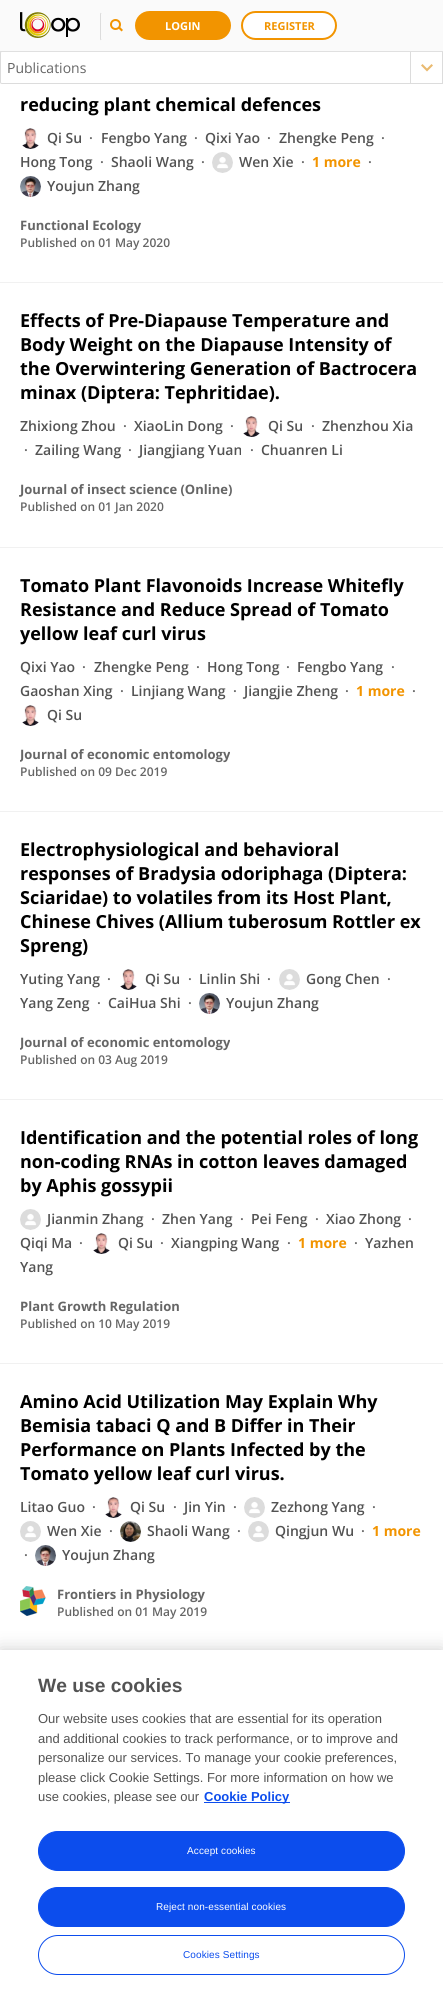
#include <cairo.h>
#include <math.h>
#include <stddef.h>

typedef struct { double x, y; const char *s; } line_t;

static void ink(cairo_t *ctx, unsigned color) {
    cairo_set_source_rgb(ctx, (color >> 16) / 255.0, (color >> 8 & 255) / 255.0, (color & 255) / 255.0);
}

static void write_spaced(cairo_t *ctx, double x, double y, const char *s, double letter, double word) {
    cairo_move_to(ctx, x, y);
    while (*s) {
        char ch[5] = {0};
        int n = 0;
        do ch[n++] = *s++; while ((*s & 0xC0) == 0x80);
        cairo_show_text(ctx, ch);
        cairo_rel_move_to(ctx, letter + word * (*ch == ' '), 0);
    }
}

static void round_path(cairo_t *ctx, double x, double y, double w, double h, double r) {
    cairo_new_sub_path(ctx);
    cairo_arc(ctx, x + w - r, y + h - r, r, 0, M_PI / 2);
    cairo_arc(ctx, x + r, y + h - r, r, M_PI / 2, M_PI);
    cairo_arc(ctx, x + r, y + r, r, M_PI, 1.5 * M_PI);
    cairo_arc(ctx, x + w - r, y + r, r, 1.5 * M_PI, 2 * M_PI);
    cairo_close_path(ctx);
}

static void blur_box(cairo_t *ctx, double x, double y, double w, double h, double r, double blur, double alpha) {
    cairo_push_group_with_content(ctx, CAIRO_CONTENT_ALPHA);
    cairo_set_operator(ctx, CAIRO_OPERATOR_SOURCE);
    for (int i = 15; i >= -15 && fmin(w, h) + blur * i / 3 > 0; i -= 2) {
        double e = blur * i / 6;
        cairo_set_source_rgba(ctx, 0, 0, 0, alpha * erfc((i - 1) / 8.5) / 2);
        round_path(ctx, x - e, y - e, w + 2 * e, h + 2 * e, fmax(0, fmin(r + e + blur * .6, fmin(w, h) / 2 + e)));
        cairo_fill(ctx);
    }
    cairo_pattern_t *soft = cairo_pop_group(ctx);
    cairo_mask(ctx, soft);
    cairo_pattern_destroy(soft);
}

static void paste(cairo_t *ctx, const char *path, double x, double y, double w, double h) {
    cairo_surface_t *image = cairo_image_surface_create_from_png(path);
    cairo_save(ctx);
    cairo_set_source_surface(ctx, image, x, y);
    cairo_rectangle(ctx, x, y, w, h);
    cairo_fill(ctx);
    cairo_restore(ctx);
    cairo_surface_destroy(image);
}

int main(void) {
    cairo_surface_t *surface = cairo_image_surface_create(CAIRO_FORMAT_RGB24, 443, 1999);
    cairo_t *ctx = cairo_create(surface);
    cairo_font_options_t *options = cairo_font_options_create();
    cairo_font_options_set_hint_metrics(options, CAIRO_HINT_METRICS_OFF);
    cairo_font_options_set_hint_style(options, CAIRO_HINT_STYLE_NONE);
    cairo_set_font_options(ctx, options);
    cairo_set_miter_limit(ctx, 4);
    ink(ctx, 0xFFFFFF);
    cairo_paint(ctx);
    ink(ctx, 0xFAFAFA);
    cairo_rectangle(ctx, 0, 0, 443, 51);
    cairo_fill(ctx);
    cairo_new_path(ctx);
    cairo_move_to(ctx, 2, 51.5);
    cairo_line_to(ctx, 442.5, 51.5);
    cairo_line_to(ctx, 442.5, 83.5);
    cairo_line_to(ctx, 2, 83.5);
    cairo_curve_to(ctx, 1, 83.5, 0.5, 83, 0.5, 82);
    cairo_line_to(ctx, 0.5, 53);
    cairo_curve_to(ctx, 0.5, 52, 1, 51.5, 2, 51.5);
    cairo_close_path(ctx);
    ink(ctx, 0xDCDCDC);
    cairo_set_line_width(ctx, 1);
    cairo_stroke(ctx);
    cairo_rectangle(ctx, 410, 51, 1, 33);
    cairo_fill(ctx);
    ink(ctx, 0xE0E0E0);
    cairo_rectangle(ctx, 0, 51, 443, 1);
    cairo_fill(ctx);
    paste(ctx, "media/1.png", 20, 12, 60, 26);
    cairo_new_path(ctx);
    cairo_move_to(ctx, 101, 40);
    cairo_line_to(ctx, 100.5, 39);
    cairo_line_to(ctx, 100.5, 14);
    cairo_line_to(ctx, 101, 13);
    ink(ctx, 0xDCDCDC);
    cairo_stroke(ctx);
    ink(ctx, 0xF29400);
    cairo_arc(ctx, 115.5, 24.5, 5.5, 0, 2 * M_PI);
    cairo_fill(ctx);
    ink(ctx, 0xF9F9F9);
    cairo_arc(ctx, 115.5, 24.5, 3.5, 0, 2 * M_PI);
    cairo_fill(ctx);
    ink(ctx, 0xF29400);
    cairo_new_path(ctx);
    cairo_move_to(ctx, 119.5, 26.5);
    cairo_line_to(ctx, 123, 30);
    cairo_line_to(ctx, 121.5, 31.5);
    cairo_line_to(ctx, 118, 28);
    cairo_close_path(ctx);
    cairo_fill(ctx);
    round_path(ctx, 136, 12, 94, 27, 13.5);
    cairo_fill_preserve(ctx);
    cairo_set_line_width(ctx, 2);
    cairo_stroke(ctx);
    cairo_select_font_face(ctx, "Open Sans", CAIRO_FONT_SLANT_NORMAL, CAIRO_FONT_WEIGHT_BOLD);
    cairo_set_font_size(ctx, 11);
    ink(ctx, 0xFFFFFF);
    cairo_move_to(ctx, 165, 30);
    cairo_show_text(ctx, "LOGIN");
    round_path(ctx, 242, 12, 94, 27, 13.5);
    cairo_fill_preserve(ctx);
    ink(ctx, 0xF29400);
    cairo_stroke(ctx);
    cairo_move_to(ctx, 264, 30);
    cairo_show_text(ctx, "REGISTER");
    cairo_select_font_face(ctx, "Open Sans", CAIRO_FONT_SLANT_NORMAL, CAIRO_FONT_WEIGHT_NORMAL);
    cairo_set_font_size(ctx, 14);
    ink(ctx, 0x666666);
    cairo_move_to(ctx, 7, 73);
    cairo_show_text(ctx, "Publications");
    paste(ctx, "media/2.png", 421, 64, 12, 8);
    ink(ctx, 0xF1F1F1);
    cairo_rectangle(ctx, 0, 282, 443, 1);
    cairo_fill(ctx);
    cairo_select_font_face(ctx, "Open Sans", CAIRO_FONT_SLANT_NORMAL, CAIRO_FONT_WEIGHT_BOLD);
    cairo_set_font_size(ctx, 18);
    ink(ctx, 0x000000);
    cairo_move_to(ctx, 20, 111);
    cairo_show_text(ctx, "reducing plant chemical defences");
    paste(ctx, "media/3.png", 22, 128, 17, 21);
    cairo_select_font_face(ctx, "Open Sans SemiBold", CAIRO_FONT_SLANT_NORMAL, CAIRO_FONT_WEIGHT_NORMAL);
    cairo_set_font_size(ctx, 14);
    ink(ctx, 0x535353);
    cairo_move_to(ctx, 47, 143);
    cairo_show_text(ctx, "Qi Su");
    ink(ctx, 0x666666);
    cairo_move_to(ctx, 89, 143);
    cairo_show_text(ctx, "·");
    ink(ctx, 0x535353);
    cairo_move_to(ctx, 101, 143);
    cairo_show_text(ctx, "Fengbo Yang");
    ink(ctx, 0x666666);
    cairo_move_to(ctx, 194, 143);
    cairo_show_text(ctx, "·");
    ink(ctx, 0x535353);
    cairo_move_to(ctx, 205, 143);
    cairo_show_text(ctx, "Qixi Yao");
    ink(ctx, 0x666666);
    cairo_move_to(ctx, 267, 143);
    cairo_show_text(ctx, "·");
    ink(ctx, 0x535353);
    cairo_move_to(ctx, 279, 143);
    cairo_show_text(ctx, "Zhengke Peng");
    ink(ctx, 0x666666);
    cairo_move_to(ctx, 381, 143);
    cairo_show_text(ctx, "·");
    ink(ctx, 0x535353);
    cairo_move_to(ctx, 20, 167);
    cairo_show_text(ctx, "Hong Tong");
    ink(ctx, 0x666666);
    cairo_move_to(ctx, 100, 167);
    cairo_show_text(ctx, "·");
    ink(ctx, 0x535353);
    cairo_move_to(ctx, 111, 167);
    cairo_show_text(ctx, "Shaoli Wang");
    ink(ctx, 0x666666);
    cairo_move_to(ctx, 201, 167);
    cairo_show_text(ctx, "·");
    paste(ctx, "media/4.png", 212, 152, 21, 21);
    ink(ctx, 0x535353);
    cairo_move_to(ctx, 239, 167);
    cairo_show_text(ctx, "Wen Xie");
    ink(ctx, 0x666666);
    cairo_move_to(ctx, 301, 167);
    cairo_show_text(ctx, "·");
    cairo_select_font_face(ctx, "Open Sans", CAIRO_FONT_SLANT_NORMAL, CAIRO_FONT_WEIGHT_BOLD);
    ink(ctx, 0xF29400);
    cairo_move_to(ctx, 312, 167);
    cairo_show_text(ctx, "1 more");
    cairo_select_font_face(ctx, "Open Sans SemiBold", CAIRO_FONT_SLANT_NORMAL, CAIRO_FONT_WEIGHT_NORMAL);
    ink(ctx, 0x666666);
    cairo_move_to(ctx, 368, 167);
    cairo_show_text(ctx, "·");
    paste(ctx, "media/5.png", 20, 176, 21, 21);
    ink(ctx, 0x535353);
    cairo_move_to(ctx, 47, 191);
    cairo_show_text(ctx, "Youjun Zhang");
    cairo_select_font_face(ctx, "Open Sans", CAIRO_FONT_SLANT_NORMAL, CAIRO_FONT_WEIGHT_BOLD);
    cairo_set_font_size(ctx, 13);
    ink(ctx, 0x666666);
    cairo_move_to(ctx, 20, 230);
    cairo_show_text(ctx, "Functional Ecology");
    cairo_select_font_face(ctx, "Open Sans SemiBold", CAIRO_FONT_SLANT_NORMAL, CAIRO_FONT_WEIGHT_NORMAL);
    cairo_set_font_size(ctx, 12);
    cairo_move_to(ctx, 20, 247);
    cairo_show_text(ctx, "Published on 01 May 2020");
    ink(ctx, 0xF1F1F1);
    cairo_rectangle(ctx, 0, 547, 443, 1);
    cairo_fill(ctx);
    cairo_select_font_face(ctx, "Open Sans", CAIRO_FONT_SLANT_NORMAL, CAIRO_FONT_WEIGHT_BOLD);
    cairo_set_font_size(ctx, 18);
    ink(ctx, 0x000000);
    {
        static const line_t items[] = {
            {20, 327, "Effects of Pre-Diapause Temperature and"},
            {20, 351, "Body Weight on the Diapause Intensity of"},
            {20, 375, "the Overwintering Generation of Bactrocera"},
            {20, 399, "minax (Diptera: Tephritidae)."},
        };
        for (size_t i = 0; i < sizeof items / sizeof *items; i++) {
            cairo_move_to(ctx, items[i].x, items[i].y);
            cairo_show_text(ctx, items[i].s);
        }
    }
    cairo_select_font_face(ctx, "Open Sans SemiBold", CAIRO_FONT_SLANT_NORMAL, CAIRO_FONT_WEIGHT_NORMAL);
    cairo_set_font_size(ctx, 14);
    ink(ctx, 0x535353);
    cairo_move_to(ctx, 20, 431);
    cairo_show_text(ctx, "Zhixiong Zhou");
    ink(ctx, 0x666666);
    cairo_move_to(ctx, 123, 431);
    cairo_show_text(ctx, "·");
    ink(ctx, 0x535353);
    cairo_move_to(ctx, 134, 431);
    cairo_show_text(ctx, "XiaoLin Dong");
    ink(ctx, 0x666666);
    cairo_move_to(ctx, 230, 431);
    cairo_show_text(ctx, "·");
    paste(ctx, "media/6.png", 243, 416, 17, 21);
    ink(ctx, 0x535353);
    cairo_move_to(ctx, 268, 431);
    cairo_show_text(ctx, "Qi Su");
    ink(ctx, 0x666666);
    cairo_move_to(ctx, 311, 431);
    cairo_show_text(ctx, "·");
    ink(ctx, 0x535353);
    cairo_move_to(ctx, 322, 431);
    cairo_show_text(ctx, "Zhenzhou Xia");
    ink(ctx, 0x666666);
    cairo_move_to(ctx, 24, 455);
    cairo_show_text(ctx, "·");
    ink(ctx, 0x535353);
    cairo_move_to(ctx, 35, 455);
    cairo_show_text(ctx, "Zailing Wang");
    ink(ctx, 0x666666);
    cairo_move_to(ctx, 128, 455);
    cairo_show_text(ctx, "·");
    ink(ctx, 0x535353);
    cairo_move_to(ctx, 139, 455);
    cairo_show_text(ctx, "Jiangjiang Yuan");
    ink(ctx, 0x666666);
    cairo_move_to(ctx, 250, 455);
    cairo_show_text(ctx, "·");
    ink(ctx, 0x535353);
    cairo_move_to(ctx, 261, 455);
    cairo_show_text(ctx, "Chuanren Li");
    cairo_select_font_face(ctx, "Open Sans", CAIRO_FONT_SLANT_NORMAL, CAIRO_FONT_WEIGHT_BOLD);
    cairo_set_font_size(ctx, 13);
    ink(ctx, 0x666666);
    cairo_move_to(ctx, 20, 494);
    cairo_show_text(ctx, "Journal of insect science (Online)");
    cairo_select_font_face(ctx, "Open Sans SemiBold", CAIRO_FONT_SLANT_NORMAL, CAIRO_FONT_WEIGHT_NORMAL);
    cairo_set_font_size(ctx, 12);
    cairo_move_to(ctx, 20, 511);
    cairo_show_text(ctx, "Published on 01 Jan 2020");
    ink(ctx, 0xF1F1F1);
    cairo_rectangle(ctx, 0, 811, 443, 1);
    cairo_fill(ctx);
    cairo_select_font_face(ctx, "Open Sans", CAIRO_FONT_SLANT_NORMAL, CAIRO_FONT_WEIGHT_BOLD);
    cairo_set_font_size(ctx, 18);
    ink(ctx, 0x000000);
    {
        static const line_t items[] = {
            {20, 592, "Tomato Plant Flavonoids Increase Whitefly"},
            {20, 616, "Resistance and Reduce Spread of Tomato"},
            {20, 640, "yellow leaf curl virus"},
        };
        for (size_t i = 0; i < sizeof items / sizeof *items; i++) {
            cairo_move_to(ctx, items[i].x, items[i].y);
            cairo_show_text(ctx, items[i].s);
        }
    }
    cairo_select_font_face(ctx, "Open Sans SemiBold", CAIRO_FONT_SLANT_NORMAL, CAIRO_FONT_WEIGHT_NORMAL);
    cairo_set_font_size(ctx, 14);
    ink(ctx, 0x535353);
    cairo_move_to(ctx, 20, 672);
    cairo_show_text(ctx, "Qixi Yao");
    ink(ctx, 0x666666);
    cairo_move_to(ctx, 82, 672);
    cairo_show_text(ctx, "·");
    ink(ctx, 0x535353);
    cairo_move_to(ctx, 94, 672);
    cairo_show_text(ctx, "Zhengke Peng");
    ink(ctx, 0x666666);
    cairo_move_to(ctx, 196, 672);
    cairo_show_text(ctx, "·");
    ink(ctx, 0x535353);
    cairo_move_to(ctx, 207, 672);
    cairo_show_text(ctx, "Hong Tong");
    ink(ctx, 0x666666);
    cairo_move_to(ctx, 286, 672);
    cairo_show_text(ctx, "·");
    ink(ctx, 0x535353);
    cairo_move_to(ctx, 297, 672);
    cairo_show_text(ctx, "Fengbo Yang");
    ink(ctx, 0x666666);
    cairo_move_to(ctx, 391, 672);
    cairo_show_text(ctx, "·");
    ink(ctx, 0x535353);
    cairo_move_to(ctx, 20, 696);
    cairo_show_text(ctx, "Gaoshan Xing");
    ink(ctx, 0x666666);
    cairo_move_to(ctx, 120, 696);
    cairo_show_text(ctx, "·");
    ink(ctx, 0x535353);
    cairo_move_to(ctx, 131, 696);
    cairo_show_text(ctx, "Linjiang Wang");
    ink(ctx, 0x666666);
    cairo_move_to(ctx, 233, 696);
    cairo_show_text(ctx, "·");
    ink(ctx, 0x535353);
    cairo_move_to(ctx, 244, 696);
    cairo_show_text(ctx, "Jiangjie Zheng");
    ink(ctx, 0x666666);
    cairo_move_to(ctx, 345, 696);
    cairo_show_text(ctx, "·");
    cairo_select_font_face(ctx, "Open Sans", CAIRO_FONT_SLANT_NORMAL, CAIRO_FONT_WEIGHT_BOLD);
    ink(ctx, 0xF29400);
    cairo_move_to(ctx, 356, 696);
    cairo_show_text(ctx, "1 more");
    cairo_select_font_face(ctx, "Open Sans SemiBold", CAIRO_FONT_SLANT_NORMAL, CAIRO_FONT_WEIGHT_NORMAL);
    ink(ctx, 0x666666);
    cairo_move_to(ctx, 412, 696);
    cairo_show_text(ctx, "·");
    paste(ctx, "media/3.png", 22, 705, 17, 21);
    ink(ctx, 0x535353);
    cairo_move_to(ctx, 47, 720);
    cairo_show_text(ctx, "Qi Su");
    cairo_save(ctx);
    cairo_rectangle(ctx, 20, 746, 210, 17);
    cairo_clip(ctx);
    cairo_select_font_face(ctx, "Open Sans", CAIRO_FONT_SLANT_NORMAL, CAIRO_FONT_WEIGHT_BOLD);
    cairo_set_font_size(ctx, 13);
    ink(ctx, 0x666666);
    cairo_move_to(ctx, 20, 759);
    cairo_show_text(ctx, "Journal of economic entomology");
    cairo_restore(ctx);
    cairo_set_font_size(ctx, 12);
    ink(ctx, 0x666666);
    cairo_move_to(ctx, 20, 776);
    cairo_show_text(ctx, "Published on 09 Dec 2019");
    ink(ctx, 0xF1F1F1);
    cairo_rectangle(ctx, 0, 1099, 443, 1);
    cairo_fill(ctx);
    cairo_select_font_face(ctx, "Open Sans", CAIRO_FONT_SLANT_NORMAL, CAIRO_FONT_WEIGHT_BOLD);
    cairo_set_font_size(ctx, 18);
    ink(ctx, 0x000000);
    {
        static const line_t items[] = {
            {20, 856, "Electrophysiological and behavioral"},
            {20, 880, "responses of Bradysia odoriphaga (Diptera:"},
            {20, 904, "Sciaridae) to volatiles from its Host Plant,"},
            {20, 928, "Chinese Chives (Allium tuberosum Rottler ex"},
            {20, 952, "Spreng)"},
        };
        for (size_t i = 0; i < sizeof items / sizeof *items; i++) {
            cairo_move_to(ctx, items[i].x, items[i].y);
            cairo_show_text(ctx, items[i].s);
        }
    }
    cairo_select_font_face(ctx, "Open Sans SemiBold", CAIRO_FONT_SLANT_NORMAL, CAIRO_FONT_WEIGHT_NORMAL);
    cairo_set_font_size(ctx, 14);
    ink(ctx, 0x535353);
    cairo_move_to(ctx, 20, 984);
    cairo_show_text(ctx, "Yuting Yang");
    ink(ctx, 0x666666);
    cairo_move_to(ctx, 107, 984);
    cairo_show_text(ctx, "·");
    paste(ctx, "media/7.png", 120, 969, 17, 21);
    ink(ctx, 0x535353);
    cairo_move_to(ctx, 145, 984);
    cairo_show_text(ctx, "Qi Su");
    ink(ctx, 0x666666);
    cairo_move_to(ctx, 188, 984);
    cairo_show_text(ctx, "·");
    ink(ctx, 0x535353);
    cairo_move_to(ctx, 199, 984);
    cairo_show_text(ctx, "Linlin Shi");
    ink(ctx, 0x666666);
    cairo_move_to(ctx, 267, 984);
    cairo_show_text(ctx, "·");
    paste(ctx, "media/8.png", 279, 969, 21, 21);
    ink(ctx, 0x535353);
    cairo_move_to(ctx, 306, 984);
    cairo_show_text(ctx, "Gong Chen");
    ink(ctx, 0x666666);
    cairo_move_to(ctx, 387, 984);
    cairo_show_text(ctx, "·");
    ink(ctx, 0x535353);
    cairo_move_to(ctx, 20, 1008);
    cairo_show_text(ctx, "Yang Zeng");
    ink(ctx, 0x666666);
    cairo_move_to(ctx, 97, 1008);
    cairo_show_text(ctx, "·");
    ink(ctx, 0x535353);
    cairo_move_to(ctx, 108, 1008);
    cairo_show_text(ctx, "CaiHua Shi");
    ink(ctx, 0x666666);
    cairo_move_to(ctx, 188, 1008);
    cairo_show_text(ctx, "·");
    paste(ctx, "media/9.png", 199, 993, 21, 21);
    ink(ctx, 0x535353);
    cairo_move_to(ctx, 226, 1008);
    cairo_show_text(ctx, "Youjun Zhang");
    cairo_save(ctx);
    cairo_rectangle(ctx, 20, 1034, 210, 17);
    cairo_clip(ctx);
    cairo_select_font_face(ctx, "Open Sans", CAIRO_FONT_SLANT_NORMAL, CAIRO_FONT_WEIGHT_BOLD);
    cairo_set_font_size(ctx, 13);
    ink(ctx, 0x666666);
    cairo_move_to(ctx, 20, 1047);
    cairo_show_text(ctx, "Journal of economic entomology");
    cairo_restore(ctx);
    cairo_set_font_size(ctx, 12);
    ink(ctx, 0x666666);
    cairo_move_to(ctx, 20, 1064);
    cairo_show_text(ctx, "Published on 03 Aug 2019");
    ink(ctx, 0xF1F1F1);
    cairo_rectangle(ctx, 0, 1363, 443, 1);
    cairo_fill(ctx);
    cairo_select_font_face(ctx, "Open Sans", CAIRO_FONT_SLANT_NORMAL, CAIRO_FONT_WEIGHT_BOLD);
    cairo_set_font_size(ctx, 18);
    ink(ctx, 0x000000);
    {
        static const line_t items[] = {
            {20, 1144, "Identification and the potential roles of long"},
            {20, 1168, "non-coding RNAs in cotton leaves damaged"},
            {20, 1192, "by Aphis gossypii"},
        };
        for (size_t i = 0; i < sizeof items / sizeof *items; i++) {
            cairo_move_to(ctx, items[i].x, items[i].y);
            cairo_show_text(ctx, items[i].s);
        }
    }
    paste(ctx, "media/8.png", 20, 1209, 21, 21);
    cairo_select_font_face(ctx, "Open Sans SemiBold", CAIRO_FONT_SLANT_NORMAL, CAIRO_FONT_WEIGHT_NORMAL);
    cairo_set_font_size(ctx, 14);
    ink(ctx, 0x535353);
    cairo_move_to(ctx, 47, 1224);
    cairo_show_text(ctx, "Jianmin Zhang");
    ink(ctx, 0x666666);
    cairo_move_to(ctx, 151, 1224);
    cairo_show_text(ctx, "·");
    ink(ctx, 0x535353);
    cairo_move_to(ctx, 162, 1224);
    cairo_show_text(ctx, "Zhen Yang");
    ink(ctx, 0x666666);
    cairo_move_to(ctx, 240, 1224);
    cairo_show_text(ctx, "·");
    ink(ctx, 0x535353);
    cairo_move_to(ctx, 251, 1224);
    cairo_show_text(ctx, "Pei Feng");
    ink(ctx, 0x666666);
    cairo_move_to(ctx, 315, 1224);
    cairo_show_text(ctx, "·");
    ink(ctx, 0x535353);
    cairo_move_to(ctx, 326, 1224);
    cairo_show_text(ctx, "Xiao Zhong");
    ink(ctx, 0x666666);
    cairo_move_to(ctx, 408, 1224);
    cairo_show_text(ctx, "·");
    ink(ctx, 0x535353);
    cairo_move_to(ctx, 20, 1248);
    cairo_show_text(ctx, "Qiqi Ma");
    ink(ctx, 0x666666);
    cairo_move_to(ctx, 79, 1248);
    cairo_show_text(ctx, "·");
    paste(ctx, "media/10.png", 93, 1233, 17, 21);
    ink(ctx, 0x535353);
    cairo_move_to(ctx, 118, 1248);
    cairo_show_text(ctx, "Qi Su");
    ink(ctx, 0x666666);
    cairo_move_to(ctx, 160, 1248);
    cairo_show_text(ctx, "·");
    ink(ctx, 0x535353);
    cairo_move_to(ctx, 171, 1248);
    cairo_show_text(ctx, "Xiangping Wang");
    ink(ctx, 0x666666);
    cairo_move_to(ctx, 287, 1248);
    cairo_show_text(ctx, "·");
    cairo_select_font_face(ctx, "Open Sans", CAIRO_FONT_SLANT_NORMAL, CAIRO_FONT_WEIGHT_BOLD);
    ink(ctx, 0xF29400);
    cairo_move_to(ctx, 298, 1248);
    cairo_show_text(ctx, "1 more");
    cairo_select_font_face(ctx, "Open Sans SemiBold", CAIRO_FONT_SLANT_NORMAL, CAIRO_FONT_WEIGHT_NORMAL);
    ink(ctx, 0x666666);
    cairo_move_to(ctx, 354, 1248);
    cairo_show_text(ctx, "·");
    ink(ctx, 0x535353);
    cairo_move_to(ctx, 365, 1248);
    cairo_show_text(ctx, "Yazhen");
    cairo_move_to(ctx, 20, 1272);
    cairo_show_text(ctx, "Yang");
    cairo_select_font_face(ctx, "Open Sans", CAIRO_FONT_SLANT_NORMAL, CAIRO_FONT_WEIGHT_BOLD);
    cairo_set_font_size(ctx, 13);
    ink(ctx, 0x666666);
    cairo_move_to(ctx, 20, 1311);
    cairo_show_text(ctx, "Plant Growth Regulation");
    cairo_select_font_face(ctx, "Open Sans SemiBold", CAIRO_FONT_SLANT_NORMAL, CAIRO_FONT_WEIGHT_NORMAL);
    cairo_set_font_size(ctx, 12);
    cairo_move_to(ctx, 20, 1328);
    cairo_show_text(ctx, "Published on 10 May 2019");
    cairo_select_font_face(ctx, "Open Sans", CAIRO_FONT_SLANT_NORMAL, CAIRO_FONT_WEIGHT_BOLD);
    cairo_set_font_size(ctx, 18);
    ink(ctx, 0x000000);
    {
        static const line_t items[] = {
            {20, 1408, "Amino Acid Utilization May Explain Why"},
            {20, 1432, "Bemisia tabaci Q and B Differ in Their"},
            {20, 1456, "Performance on Plants Infected by the"},
            {20, 1480, "Tomato yellow leaf curl virus."},
        };
        for (size_t i = 0; i < sizeof items / sizeof *items; i++) {
            cairo_move_to(ctx, items[i].x, items[i].y);
            cairo_show_text(ctx, items[i].s);
        }
    }
    cairo_select_font_face(ctx, "Open Sans SemiBold", CAIRO_FONT_SLANT_NORMAL, CAIRO_FONT_WEIGHT_NORMAL);
    cairo_set_font_size(ctx, 14);
    ink(ctx, 0x535353);
    cairo_move_to(ctx, 20, 1512);
    cairo_show_text(ctx, "Litao Guo");
    ink(ctx, 0x666666);
    cairo_move_to(ctx, 92, 1512);
    cairo_show_text(ctx, "·");
    paste(ctx, "media/11.png", 105, 1497, 17, 21);
    ink(ctx, 0x535353);
    cairo_move_to(ctx, 130, 1512);
    cairo_show_text(ctx, "Qi Su");
    ink(ctx, 0x666666);
    cairo_move_to(ctx, 173, 1512);
    cairo_show_text(ctx, "·");
    ink(ctx, 0x535353);
    cairo_move_to(ctx, 184, 1512);
    cairo_show_text(ctx, "Jin Yin");
    ink(ctx, 0x666666);
    cairo_move_to(ctx, 233, 1512);
    cairo_show_text(ctx, "·");
    paste(ctx, "media/12.png", 244, 1497, 21, 21);
    ink(ctx, 0x535353);
    cairo_move_to(ctx, 271, 1512);
    cairo_show_text(ctx, "Zezhong Yang");
    ink(ctx, 0x666666);
    cairo_move_to(ctx, 372, 1512);
    cairo_show_text(ctx, "·");
    paste(ctx, "media/13.png", 20, 1521, 21, 21);
    ink(ctx, 0x535353);
    cairo_move_to(ctx, 47, 1536);
    cairo_show_text(ctx, "Wen Xie");
    ink(ctx, 0x666666);
    cairo_move_to(ctx, 109, 1536);
    cairo_show_text(ctx, "·");
    paste(ctx, "media/14.png", 120, 1521, 21, 21);
    ink(ctx, 0x535353);
    cairo_move_to(ctx, 147, 1536);
    cairo_show_text(ctx, "Shaoli Wang");
    ink(ctx, 0x666666);
    cairo_move_to(ctx, 237, 1536);
    cairo_show_text(ctx, "·");
    paste(ctx, "media/15.png", 248, 1521, 21, 21);
    ink(ctx, 0x535353);
    cairo_move_to(ctx, 275, 1536);
    cairo_show_text(ctx, "Qingjun Wu");
    ink(ctx, 0x666666);
    cairo_move_to(ctx, 361, 1536);
    cairo_show_text(ctx, "·");
    cairo_select_font_face(ctx, "Open Sans", CAIRO_FONT_SLANT_NORMAL, CAIRO_FONT_WEIGHT_BOLD);
    ink(ctx, 0xF29400);
    cairo_move_to(ctx, 372, 1536);
    cairo_show_text(ctx, "1 more");
    cairo_select_font_face(ctx, "Open Sans SemiBold", CAIRO_FONT_SLANT_NORMAL, CAIRO_FONT_WEIGHT_NORMAL);
    ink(ctx, 0x666666);
    cairo_move_to(ctx, 24, 1560);
    cairo_show_text(ctx, "·");
    paste(ctx, "media/16.png", 35, 1545, 21, 21);
    ink(ctx, 0x535353);
    cairo_move_to(ctx, 62, 1560);
    cairo_show_text(ctx, "Youjun Zhang");
    paste(ctx, "media/17.png", 20, 1586, 26, 30);
    cairo_select_font_face(ctx, "Open Sans", CAIRO_FONT_SLANT_NORMAL, CAIRO_FONT_WEIGHT_BOLD);
    cairo_set_font_size(ctx, 13);
    ink(ctx, 0x666666);
    cairo_move_to(ctx, 57, 1599);
    cairo_show_text(ctx, "Frontiers in Physiology");
    cairo_select_font_face(ctx, "Open Sans SemiBold", CAIRO_FONT_SLANT_NORMAL, CAIRO_FONT_WEIGHT_NORMAL);
    cairo_set_font_size(ctx, 12);
    cairo_move_to(ctx, 57, 1616);
    cairo_show_text(ctx, "Published on 01 May 2019");
    ink(ctx, 0x000000);
    blur_box(ctx, 0, 1650, 443, 349, 0, 9, 0.2);
    ink(ctx, 0xFFFFFF);
    cairo_rectangle(ctx, 0, 1650, 443, 349);
    cairo_fill(ctx);
    cairo_select_font_face(ctx, "Liberation Sans", CAIRO_FONT_SLANT_NORMAL, CAIRO_FONT_WEIGHT_BOLD);
    cairo_set_font_size(ctx, 19.25);
    ink(ctx, 0x535353);
    cairo_move_to(ctx, 38, 1692);
    cairo_show_text(ctx, "We use cookies");
    cairo_select_font_face(ctx, "Liberation Sans", CAIRO_FONT_SLANT_NORMAL, CAIRO_FONT_WEIGHT_NORMAL);
    cairo_set_font_size(ctx, 13);
    {
        static const line_t items[] = {
            {38, 1723, "Our website uses cookies that are essential for its operation"},
            {38, 1743, "and additional cookies to track performance, or to improve and"},
            {38, 1762, "personalize our services. To manage your cookie preferences,"},
            {38, 1782, "please click Cookie Settings. For more information on how we"},
            {38, 1801, "use cookies, please see our"},
        };
        for (size_t i = 0; i < sizeof items / sizeof *items; i++) {
            cairo_move_to(ctx, items[i].x, items[i].y);
            cairo_show_text(ctx, items[i].s);
        }
    }
    ink(ctx, 0x0C4DED);
    cairo_rectangle(ctx, 204, 1802, 86, 1);
    cairo_fill(ctx);
    cairo_select_font_face(ctx, "Liberation Sans", CAIRO_FONT_SLANT_NORMAL, CAIRO_FONT_WEIGHT_BOLD);
    cairo_move_to(ctx, 204, 1801);
    cairo_show_text(ctx, "Cookie Policy");
    round_path(ctx, 38.5, 1831.5, 366, 39, 19.5);
    cairo_fill_preserve(ctx);
    cairo_set_line_width(ctx, 1);
    cairo_stroke(ctx);
    cairo_select_font_face(ctx, "Liberation Sans", CAIRO_FONT_SLANT_NORMAL, CAIRO_FONT_WEIGHT_NORMAL);
    cairo_set_font_size(ctx, 10);
    ink(ctx, 0xFFFFFF);
    write_spaced(ctx, 187, 1854, "Accept cookies", 0.1, 0);
    ink(ctx, 0x0C4DED);
    round_path(ctx, 38.5, 1887.5, 366, 39, 19.5);
    cairo_fill_preserve(ctx);
    cairo_stroke(ctx);
    ink(ctx, 0xFFFFFF);
    write_spaced(ctx, 156, 1910, "Reject non-essential cookies", 0.1, 0);
    round_path(ctx, 38.5, 1935.5, 366, 39, 19.5);
    ink(ctx, 0x0C4DED);
    cairo_stroke(ctx);
    write_spaced(ctx, 183, 1958, "Cookies Settings", 0.1, 0);
    cairo_surface_write_to_png(surface, "image.png");
    cairo_font_options_destroy(options);
    cairo_destroy(ctx);
    cairo_surface_destroy(surface);
    return 0;
}
